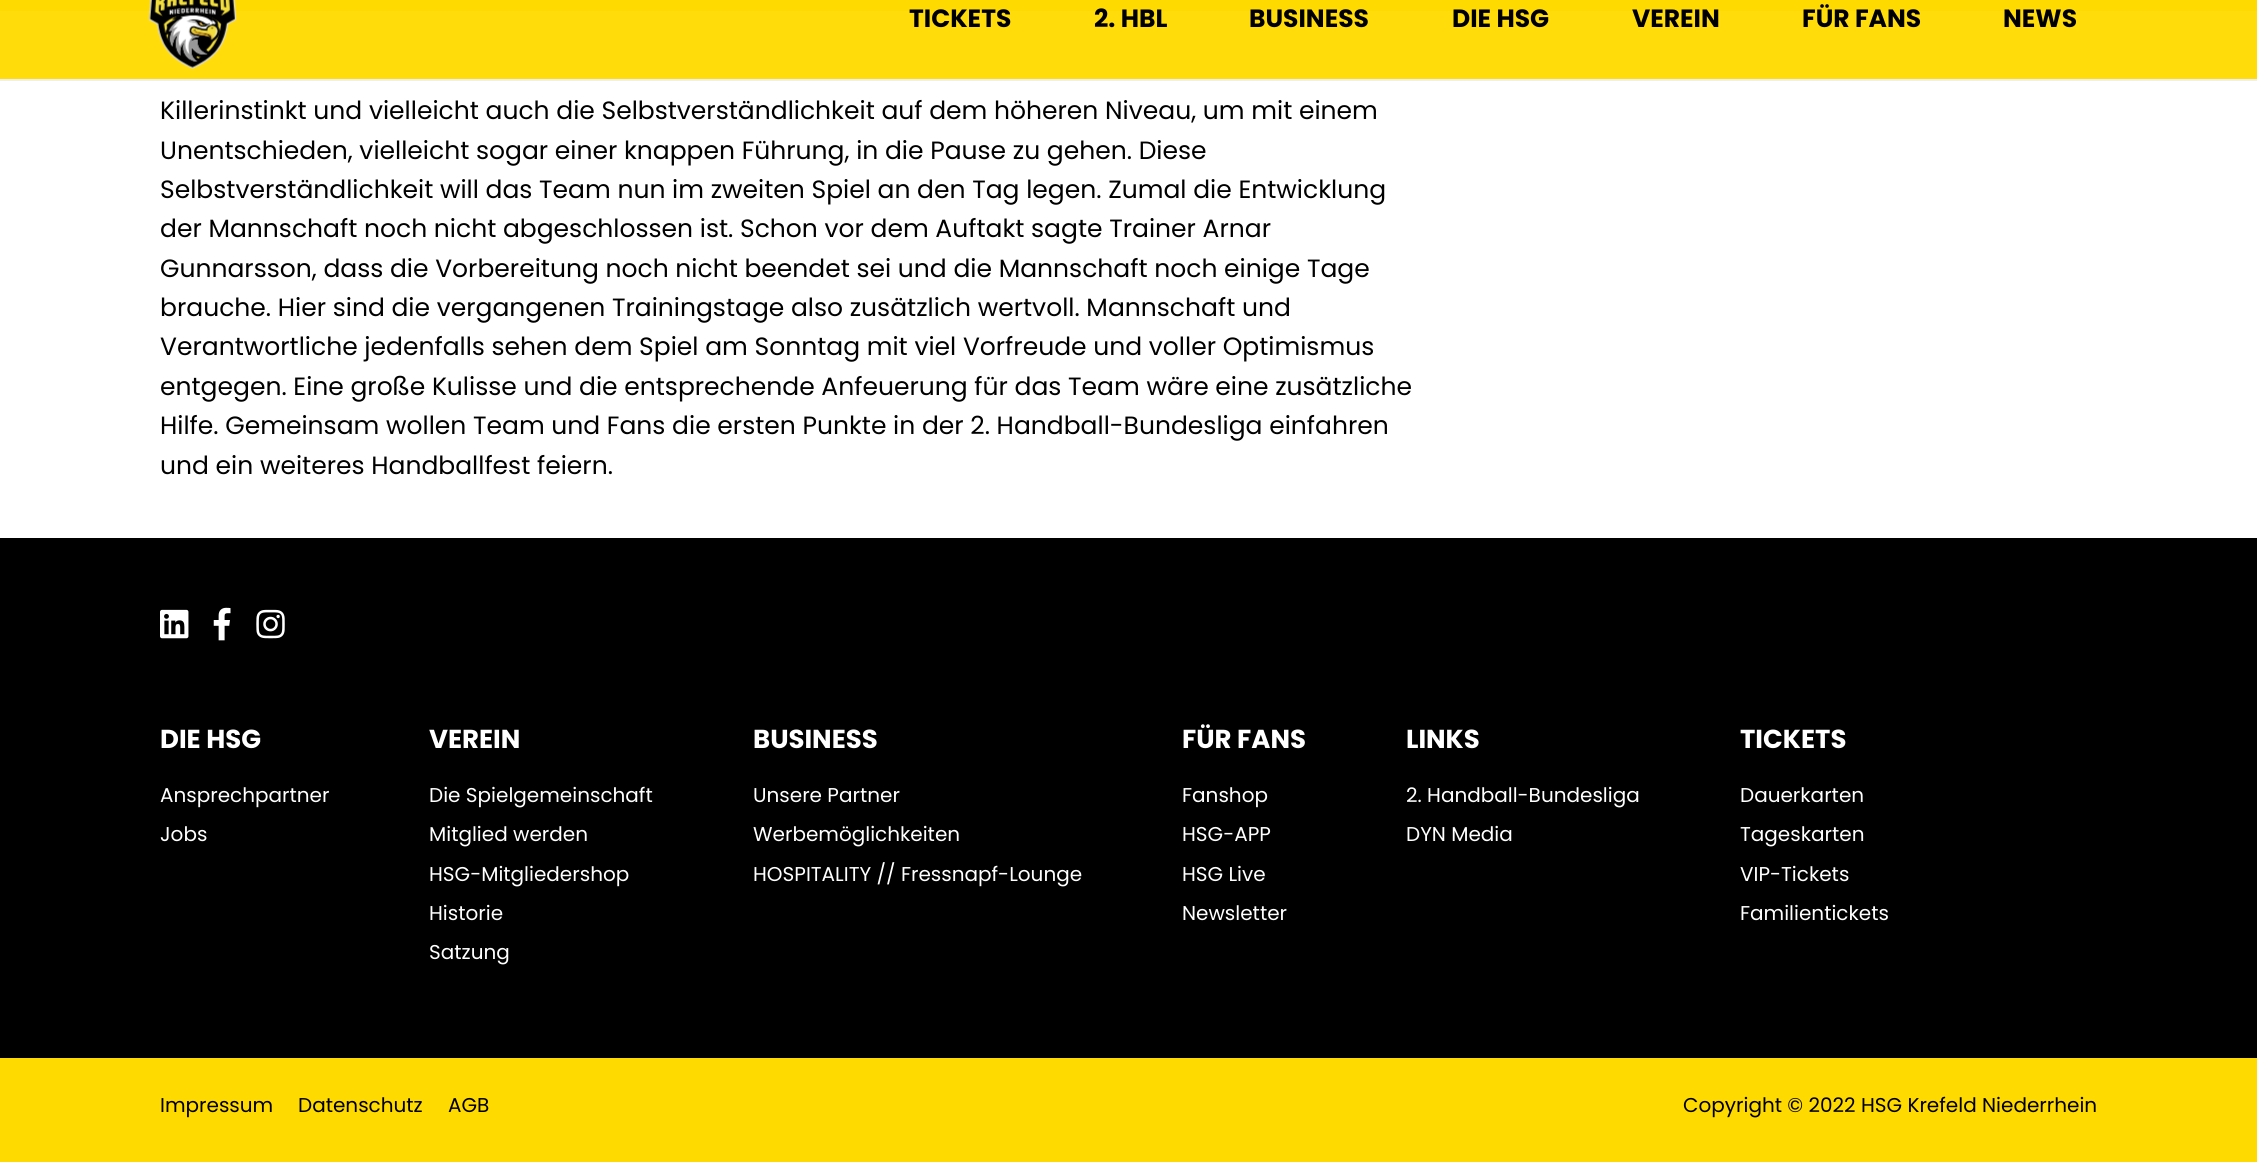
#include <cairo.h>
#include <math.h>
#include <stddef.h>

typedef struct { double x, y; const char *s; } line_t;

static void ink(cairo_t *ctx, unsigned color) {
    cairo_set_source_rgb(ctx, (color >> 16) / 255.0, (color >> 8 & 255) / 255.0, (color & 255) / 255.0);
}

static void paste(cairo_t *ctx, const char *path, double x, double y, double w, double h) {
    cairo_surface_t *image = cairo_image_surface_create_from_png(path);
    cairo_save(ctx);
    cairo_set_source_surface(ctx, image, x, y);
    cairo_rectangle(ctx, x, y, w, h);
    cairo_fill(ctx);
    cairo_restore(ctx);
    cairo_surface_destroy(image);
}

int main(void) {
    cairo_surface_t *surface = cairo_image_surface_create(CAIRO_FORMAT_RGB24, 2257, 1162);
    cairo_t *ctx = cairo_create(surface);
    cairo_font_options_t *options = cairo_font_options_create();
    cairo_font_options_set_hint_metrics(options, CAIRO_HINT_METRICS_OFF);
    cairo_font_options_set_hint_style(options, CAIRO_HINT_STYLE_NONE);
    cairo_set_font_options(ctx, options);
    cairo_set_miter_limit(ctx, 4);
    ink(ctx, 0xFFFFFF);
    cairo_paint(ctx);
    cairo_set_source_rgba(ctx, 0.294, 0.361, 0.416, 0.1);
    cairo_new_path(ctx);
    cairo_move_to(ctx, 0, 79);
    cairo_line_to(ctx, 0, 81);
    cairo_line_to(ctx, 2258, 81);
    cairo_line_to(ctx, 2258, -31);
    cairo_line_to(ctx, 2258, 79);
    cairo_close_path(ctx);
    cairo_fill(ctx);
    cairo_set_source_rgba(ctx, 1, 0.855, 0, 0.96);
    cairo_rectangle(ctx, 0, 11, 2257, 68);
    cairo_fill(ctx);
    ink(ctx, 0xFFDA00);
    cairo_rectangle(ctx, 0, 0, 2257, 11);
    cairo_fill(ctx);
    paste(ctx, "media/1.png", 149, 0, 88, 69);
    cairo_select_font_face(ctx, "Poppins", CAIRO_FONT_SLANT_NORMAL, CAIRO_FONT_WEIGHT_BOLD);
    cairo_set_font_size(ctx, 25);
    ink(ctx, 0x000000);
    {
        static const line_t items[] = {
            {909, 27, "TICKETS"},
            {1094, 27, "2. HBL"},
            {1249, 27, "BUSINESS"},
            {1452, 27, "DIE HSG"},
            {1632, 27, "VEREIN"},
            {1802, 27, "FÜR FANS"},
            {2003, 27, "NEWS"},
        };
        for (size_t i = 0; i < sizeof items / sizeof *items; i++) {
            cairo_move_to(ctx, items[i].x, items[i].y);
            cairo_show_text(ctx, items[i].s);
        }
    }
    cairo_select_font_face(ctx, "Poppins", CAIRO_FONT_SLANT_NORMAL, CAIRO_FONT_WEIGHT_NORMAL);
    {
        static const line_t items[] = {
            {160, 119, "Killerinstinkt und vielleicht auch die Selbstverständlichkeit auf dem höheren Niveau, um mit einem"},
            {160, 159, "Unentschieden, vielleicht sogar einer knappen Führung, in die Pause zu gehen. Diese"},
            {160, 198, "Selbstverständlichkeit will das Team nun im zweiten Spiel an den Tag legen. Zumal die Entwicklung"},
            {160, 237, "der Mannschaft noch nicht abgeschlossen ist. Schon vor dem Auftakt sagte Trainer Arnar"},
            {160, 277, "Gunnarsson, dass die Vorbereitung noch nicht beendet sei und die Mannschaft noch einige Tage"},
            {160, 316, "brauche. Hier sind die vergangenen Trainingstage also zusätzlich wertvoll. Mannschaft und"},
            {160, 355, "Verantwortliche jedenfalls sehen dem Spiel am Sonntag mit viel Vorfreude und voller Optimismus"},
            {160, 395, "entgegen. Eine große Kulisse und die entsprechende Anfeuerung für das Team wäre eine zusätzliche"},
            {160, 434, "Hilfe. Gemeinsam wollen Team und Fans die ersten Punkte in der 2. Handball-Bundesliga einfahren"},
            {160, 474, "und ein weiteres Handballfest feiern."},
        };
        for (size_t i = 0; i < sizeof items / sizeof *items; i++) {
            cairo_move_to(ctx, items[i].x, items[i].y);
            cairo_show_text(ctx, items[i].s);
        }
    }
    cairo_rectangle(ctx, 0, 538, 2257, 520);
    cairo_fill(ctx);
    paste(ctx, "media/2.png", 160, 609, 29, 30);
    paste(ctx, "media/3.png", 213, 607, 18, 34);
    paste(ctx, "media/4.png", 256, 609, 29, 30);
    cairo_select_font_face(ctx, "Poppins", CAIRO_FONT_SLANT_NORMAL, CAIRO_FONT_WEIGHT_BOLD);
    cairo_set_font_size(ctx, 26);
    ink(ctx, 0xFFFFFF);
    cairo_move_to(ctx, 160, 748);
    cairo_show_text(ctx, "DIE HSG");
    cairo_select_font_face(ctx, "Poppins", CAIRO_FONT_SLANT_NORMAL, CAIRO_FONT_WEIGHT_NORMAL);
    cairo_set_font_size(ctx, 20);
    cairo_move_to(ctx, 160, 802);
    cairo_show_text(ctx, "Ansprechpartner");
    cairo_move_to(ctx, 160, 841);
    cairo_show_text(ctx, "Jobs");
    cairo_select_font_face(ctx, "Poppins", CAIRO_FONT_SLANT_NORMAL, CAIRO_FONT_WEIGHT_BOLD);
    cairo_set_font_size(ctx, 26);
    cairo_move_to(ctx, 429, 748);
    cairo_show_text(ctx, "VEREIN");
    cairo_select_font_face(ctx, "Poppins", CAIRO_FONT_SLANT_NORMAL, CAIRO_FONT_WEIGHT_NORMAL);
    cairo_set_font_size(ctx, 20);
    {
        static const line_t items[] = {
            {429, 802, "Die Spielgemeinschaft"},
            {429, 841, "Mitglied werden"},
            {429, 881, "HSG-Mitgliedershop"},
            {429, 920, "Historie"},
            {429, 959, "Satzung"},
        };
        for (size_t i = 0; i < sizeof items / sizeof *items; i++) {
            cairo_move_to(ctx, items[i].x, items[i].y);
            cairo_show_text(ctx, items[i].s);
        }
    }
    cairo_select_font_face(ctx, "Poppins", CAIRO_FONT_SLANT_NORMAL, CAIRO_FONT_WEIGHT_BOLD);
    cairo_set_font_size(ctx, 26);
    cairo_move_to(ctx, 753, 748);
    cairo_show_text(ctx, "BUSINESS");
    cairo_select_font_face(ctx, "Poppins", CAIRO_FONT_SLANT_NORMAL, CAIRO_FONT_WEIGHT_NORMAL);
    cairo_set_font_size(ctx, 20);
    {
        static const line_t items[] = {
            {753, 802, "Unsere Partner"},
            {753, 841, "Werbemöglichkeiten"},
            {753, 881, "HOSPITALITY // Fressnapf-Lounge"},
        };
        for (size_t i = 0; i < sizeof items / sizeof *items; i++) {
            cairo_move_to(ctx, items[i].x, items[i].y);
            cairo_show_text(ctx, items[i].s);
        }
    }
    cairo_select_font_face(ctx, "Poppins", CAIRO_FONT_SLANT_NORMAL, CAIRO_FONT_WEIGHT_BOLD);
    cairo_set_font_size(ctx, 26);
    cairo_move_to(ctx, 1182, 748);
    cairo_show_text(ctx, "FÜR FANS");
    cairo_select_font_face(ctx, "Poppins", CAIRO_FONT_SLANT_NORMAL, CAIRO_FONT_WEIGHT_NORMAL);
    cairo_set_font_size(ctx, 20);
    {
        static const line_t items[] = {
            {1182, 802, "Fanshop"},
            {1182, 841, "HSG-APP"},
            {1182, 881, "HSG Live"},
            {1182, 920, "Newsletter"},
        };
        for (size_t i = 0; i < sizeof items / sizeof *items; i++) {
            cairo_move_to(ctx, items[i].x, items[i].y);
            cairo_show_text(ctx, items[i].s);
        }
    }
    cairo_select_font_face(ctx, "Poppins", CAIRO_FONT_SLANT_NORMAL, CAIRO_FONT_WEIGHT_BOLD);
    cairo_set_font_size(ctx, 26);
    cairo_move_to(ctx, 1406, 748);
    cairo_show_text(ctx, "LINKS");
    cairo_select_font_face(ctx, "Poppins", CAIRO_FONT_SLANT_NORMAL, CAIRO_FONT_WEIGHT_NORMAL);
    cairo_set_font_size(ctx, 20);
    cairo_move_to(ctx, 1406, 802);
    cairo_show_text(ctx, "2. Handball-Bundesliga");
    cairo_move_to(ctx, 1406, 841);
    cairo_show_text(ctx, "DYN Media");
    cairo_select_font_face(ctx, "Poppins", CAIRO_FONT_SLANT_NORMAL, CAIRO_FONT_WEIGHT_BOLD);
    cairo_set_font_size(ctx, 26);
    cairo_move_to(ctx, 1740, 748);
    cairo_show_text(ctx, "TICKETS");
    cairo_select_font_face(ctx, "Poppins", CAIRO_FONT_SLANT_NORMAL, CAIRO_FONT_WEIGHT_NORMAL);
    cairo_set_font_size(ctx, 20);
    {
        static const line_t items[] = {
            {1740, 802, "Dauerkarten"},
            {1740, 841, "Tageskarten"},
            {1740, 881, "VIP-Tickets"},
            {1740, 920, "Familientickets"},
        };
        for (size_t i = 0; i < sizeof items / sizeof *items; i++) {
            cairo_move_to(ctx, items[i].x, items[i].y);
            cairo_show_text(ctx, items[i].s);
        }
    }
    ink(ctx, 0xFFDA00);
    cairo_rectangle(ctx, 0, 1058, 2257, 104);
    cairo_fill(ctx);
    ink(ctx, 0x000000);
    {
        static const line_t items[] = {
            {160, 1112, "Impressum"},
            {298, 1112, "Datenschutz"},
            {448, 1112, "AGB"},
            {1683, 1112, "Copyright © 2022 HSG Krefeld Niederrhein"},
        };
        for (size_t i = 0; i < sizeof items / sizeof *items; i++) {
            cairo_move_to(ctx, items[i].x, items[i].y);
            cairo_show_text(ctx, items[i].s);
        }
    }
    cairo_surface_write_to_png(surface, "image.png");
    cairo_font_options_destroy(options);
    cairo_destroy(ctx);
    cairo_surface_destroy(surface);
    return 0;
}
